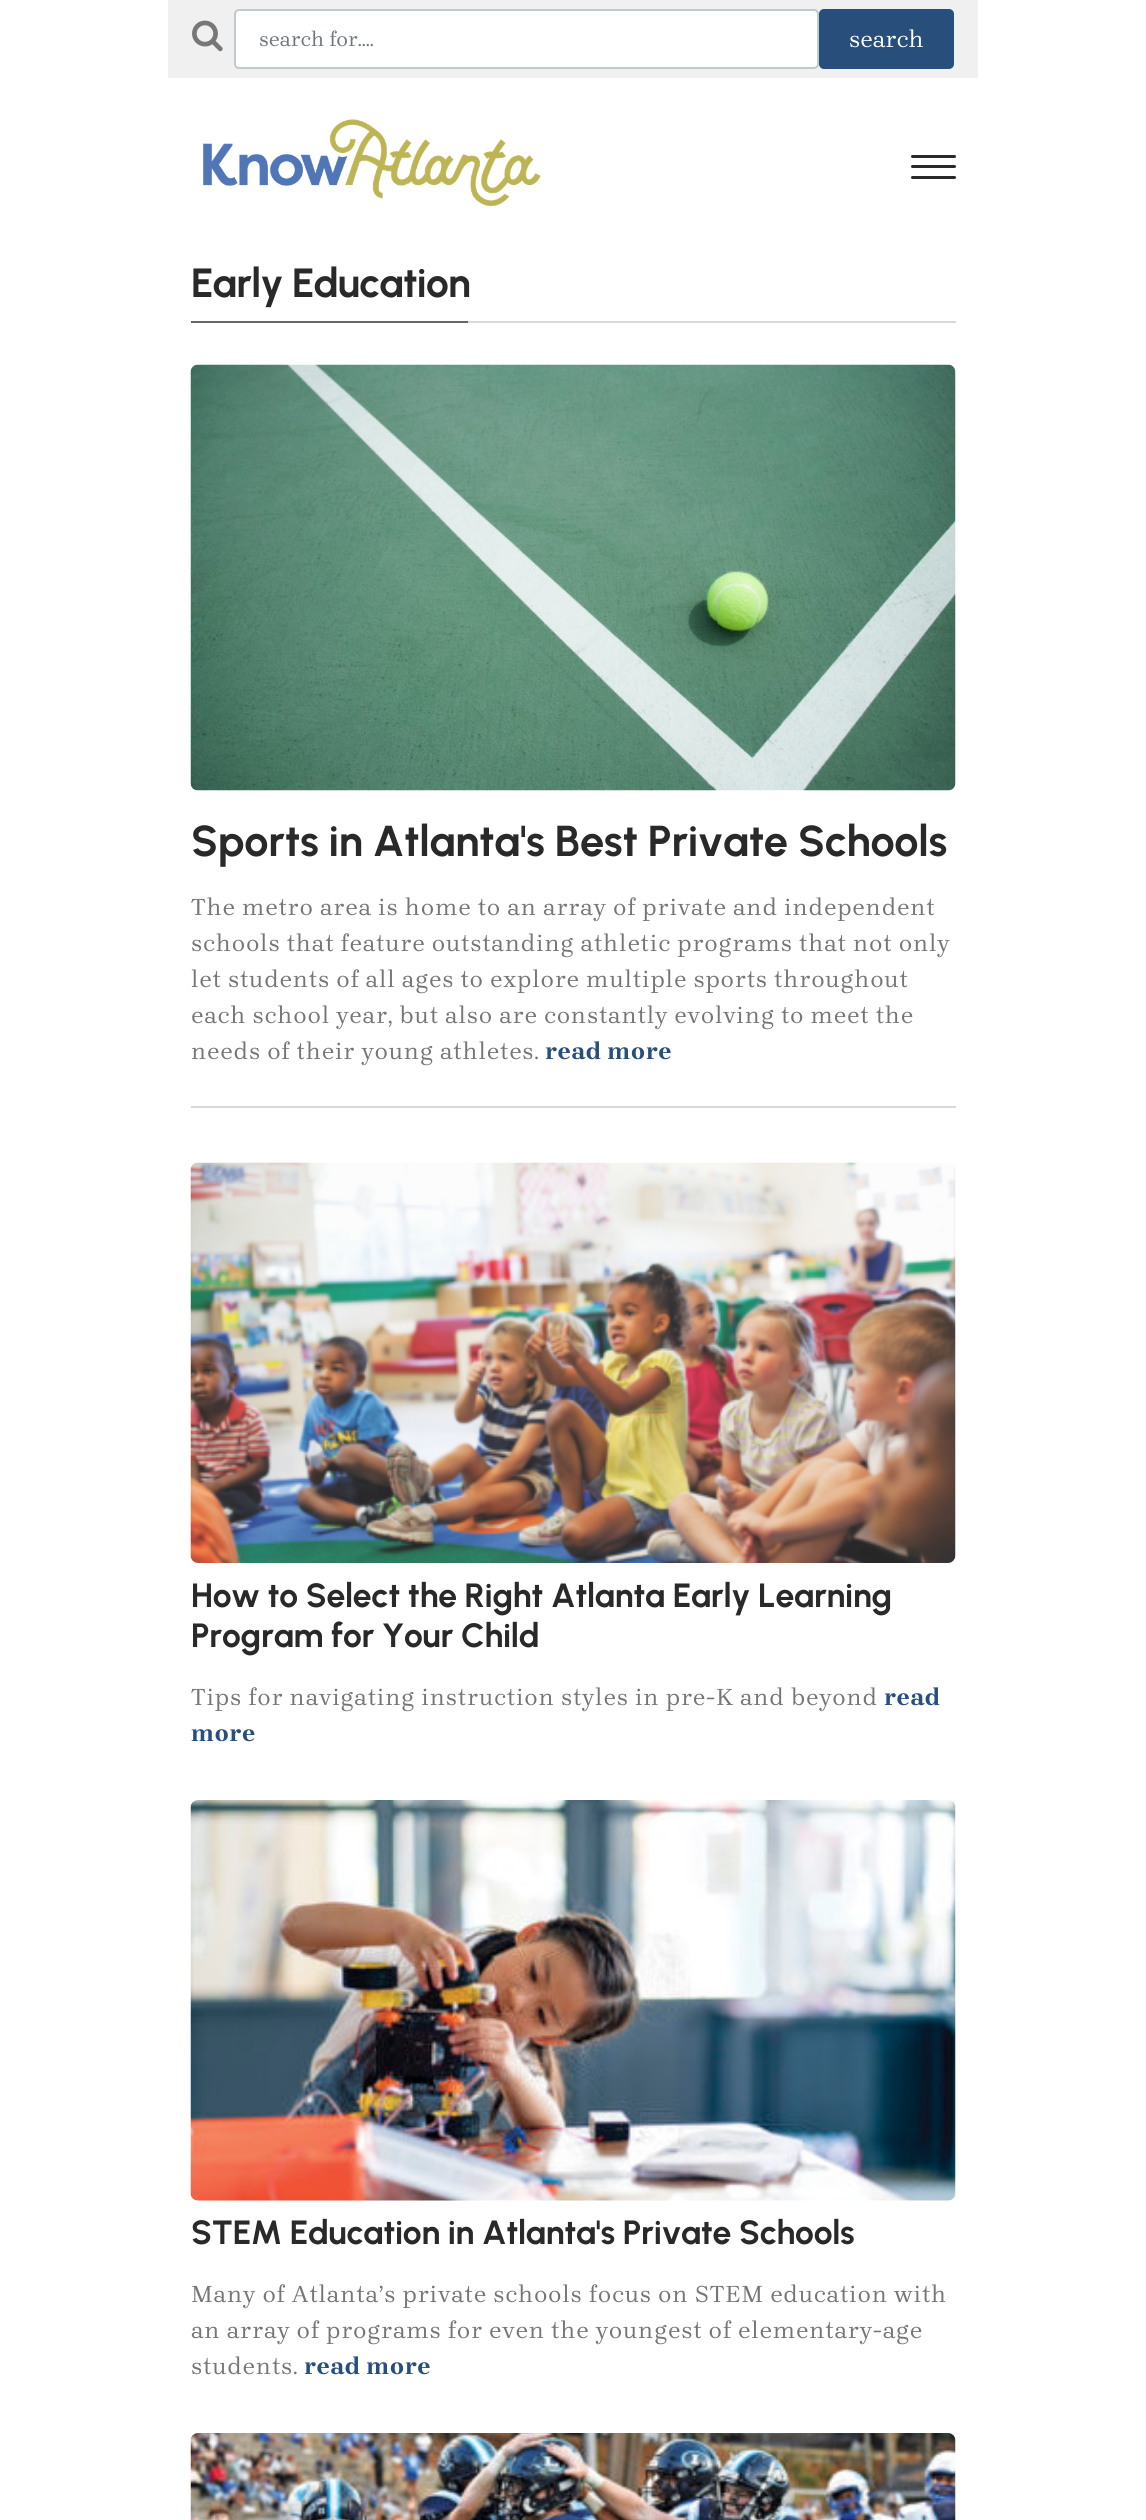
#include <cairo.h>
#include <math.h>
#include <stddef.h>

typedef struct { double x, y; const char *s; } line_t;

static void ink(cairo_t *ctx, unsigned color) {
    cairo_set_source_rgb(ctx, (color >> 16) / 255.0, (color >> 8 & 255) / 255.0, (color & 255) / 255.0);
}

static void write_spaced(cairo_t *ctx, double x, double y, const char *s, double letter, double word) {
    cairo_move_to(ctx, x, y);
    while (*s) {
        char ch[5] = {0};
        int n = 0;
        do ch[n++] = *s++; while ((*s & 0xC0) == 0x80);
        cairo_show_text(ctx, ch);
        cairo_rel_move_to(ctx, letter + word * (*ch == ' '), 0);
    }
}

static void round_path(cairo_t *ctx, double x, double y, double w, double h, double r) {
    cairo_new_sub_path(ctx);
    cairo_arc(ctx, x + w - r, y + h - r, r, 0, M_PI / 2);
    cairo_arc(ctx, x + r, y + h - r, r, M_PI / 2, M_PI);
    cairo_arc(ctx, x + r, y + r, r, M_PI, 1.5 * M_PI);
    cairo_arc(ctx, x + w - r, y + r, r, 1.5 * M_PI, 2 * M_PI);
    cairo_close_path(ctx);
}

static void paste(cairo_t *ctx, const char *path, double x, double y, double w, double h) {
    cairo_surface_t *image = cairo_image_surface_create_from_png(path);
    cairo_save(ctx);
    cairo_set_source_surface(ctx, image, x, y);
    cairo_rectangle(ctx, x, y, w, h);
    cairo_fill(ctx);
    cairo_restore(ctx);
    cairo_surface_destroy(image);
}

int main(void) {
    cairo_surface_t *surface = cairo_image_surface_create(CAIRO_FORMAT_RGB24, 1146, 2520);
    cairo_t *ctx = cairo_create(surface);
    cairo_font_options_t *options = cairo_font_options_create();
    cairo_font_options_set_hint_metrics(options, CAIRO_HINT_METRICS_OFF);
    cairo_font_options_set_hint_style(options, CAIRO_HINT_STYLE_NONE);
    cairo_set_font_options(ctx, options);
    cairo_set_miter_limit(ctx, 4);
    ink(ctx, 0xFFFFFF);
    cairo_paint(ctx);
    ink(ctx, 0xF0F0F0);
    cairo_rectangle(ctx, 168, 0, 810, 78);
    cairo_fill(ctx);
    paste(ctx, "media/1.png", 192, 20, 31, 32);
    ink(ctx, 0xFFFFFF);
    round_path(ctx, 235, 10, 583, 58, 4);
    cairo_fill_preserve(ctx);
    ink(ctx, 0xC1C9D0);
    cairo_stroke(ctx);
    cairo_select_font_face(ctx, "Brygada 1918", CAIRO_FONT_SLANT_NORMAL, CAIRO_FONT_WEIGHT_NORMAL);
    cairo_set_font_size(ctx, 21);
    ink(ctx, 0x6C757D);
    cairo_move_to(ctx, 259, 46);
    cairo_show_text(ctx, "search for....");
    ink(ctx, 0x284E7C);
    round_path(ctx, 819, 9, 135, 60, 5);
    cairo_fill(ctx);
    cairo_set_font_size(ctx, 24);
    ink(ctx, 0xFFFFFF);
    cairo_move_to(ctx, 849, 47);
    cairo_show_text(ctx, "search");
    paste(ctx, "media/2.png", 203, 119, 338, 88);
    ink(ctx, 0x292929);
    round_path(ctx, 911, 165, 45, 3, 1.5);
    cairo_fill(ctx);
    round_path(ctx, 911, 155, 45, 3, 1.5);
    cairo_fill(ctx);
    round_path(ctx, 911, 176, 45, 3, 1.5);
    cairo_fill(ctx);
    ink(ctx, 0xD9D9D9);
    cairo_rectangle(ctx, 468, 321, 488, 2);
    cairo_fill(ctx);
    ink(ctx, 0x666666);
    cairo_rectangle(ctx, 191, 321, 277, 2);
    cairo_fill(ctx);
    cairo_select_font_face(ctx, "Urbanist", CAIRO_FONT_SLANT_NORMAL, CAIRO_FONT_WEIGHT_BOLD);
    cairo_set_font_size(ctx, 40.75);
    ink(ctx, 0x292929);
    write_spaced(ctx, 191, 297, "Early Education", -0.75, 0);
    paste(ctx, "media/3.png", 190, 364, 766, 427);
    cairo_set_font_size(ctx, 43.25);
    write_spaced(ctx, 191, 856, "Sports in Atlanta's Best Private Schools", -0.25, 0);
    cairo_select_font_face(ctx, "Brygada 1918", CAIRO_FONT_SLANT_NORMAL, CAIRO_FONT_WEIGHT_NORMAL);
    cairo_set_font_size(ctx, 24);
    ink(ctx, 0x757575);
    {
        static const line_t items[] = {
            {191, 915, "The metro area is home to an array of private and independent"},
            {191, 951, "schools that feature outstanding athletic programs that not only"},
            {191, 987, "let students of all ages to explore multiple sports throughout"},
            {191, 1023, "each school year, but also are constantly evolving to meet the"},
            {191, 1059, "needs of their young athletes."},
        };
        for (size_t i = 0; i < sizeof items / sizeof *items; i++) {
            write_spaced(ctx, items[i].x, items[i].y, items[i].s, 0.75, 0);
        }
    }
    cairo_select_font_face(ctx, "Brygada 1918", CAIRO_FONT_SLANT_NORMAL, CAIRO_FONT_WEIGHT_BOLD);
    ink(ctx, 0x284E7C);
    write_spaced(ctx, 545, 1059, "read more", 0.75, 0);
    ink(ctx, 0xD9D9D9);
    cairo_rectangle(ctx, 191, 1106, 765, 2);
    cairo_fill(ctx);
    paste(ctx, "media/4.png", 190, 1162, 766, 401);
    cairo_select_font_face(ctx, "Urbanist", CAIRO_FONT_SLANT_NORMAL, CAIRO_FONT_WEIGHT_BOLD);
    cairo_set_font_size(ctx, 33.6);
    ink(ctx, 0x292929);
    write_spaced(ctx, 191, 1607, "How to Select the Right Atlanta Early Learning", -0.25, 0);
    write_spaced(ctx, 191, 1647, "Program for Your Child", -0.25, 0);
    cairo_select_font_face(ctx, "Brygada 1918", CAIRO_FONT_SLANT_NORMAL, CAIRO_FONT_WEIGHT_NORMAL);
    cairo_set_font_size(ctx, 24);
    ink(ctx, 0x757575);
    write_spaced(ctx, 191, 1705, "Tips for navigating instruction styles in pre-K and beyond", 0.75, 0);
    cairo_select_font_face(ctx, "Brygada 1918", CAIRO_FONT_SLANT_NORMAL, CAIRO_FONT_WEIGHT_BOLD);
    ink(ctx, 0x284E7C);
    write_spaced(ctx, 884, 1705, "read", 0.75, 0);
    write_spaced(ctx, 191, 1741, "more", 0.75, 0);
    paste(ctx, "media/5.png", 190, 1800, 766, 401);
    cairo_select_font_face(ctx, "Urbanist", CAIRO_FONT_SLANT_NORMAL, CAIRO_FONT_WEIGHT_BOLD);
    cairo_set_font_size(ctx, 33.6);
    ink(ctx, 0x292929);
    write_spaced(ctx, 191, 2244, "STEM Education in Atlanta's Private Schools", -0.25, 0);
    cairo_select_font_face(ctx, "Brygada 1918", CAIRO_FONT_SLANT_NORMAL, CAIRO_FONT_WEIGHT_NORMAL);
    cairo_set_font_size(ctx, 24);
    ink(ctx, 0x757575);
    {
        static const line_t items[] = {
            {191, 2302, "Many of Atlanta’s private schools focus on STEM education with"},
            {191, 2338, "an array of programs for even the youngest of elementary-age"},
            {191, 2374, "students."},
        };
        for (size_t i = 0; i < sizeof items / sizeof *items; i++) {
            write_spaced(ctx, items[i].x, items[i].y, items[i].s, 0.75, 0);
        }
    }
    cairo_select_font_face(ctx, "Brygada 1918", CAIRO_FONT_SLANT_NORMAL, CAIRO_FONT_WEIGHT_BOLD);
    ink(ctx, 0x284E7C);
    write_spaced(ctx, 304, 2374, "read more", 0.75, 0);
    paste(ctx, "media/6.png", 190, 2433, 766, 87);
    cairo_surface_write_to_png(surface, "image.png");
    cairo_font_options_destroy(options);
    cairo_destroy(ctx);
    cairo_surface_destroy(surface);
    return 0;
}
